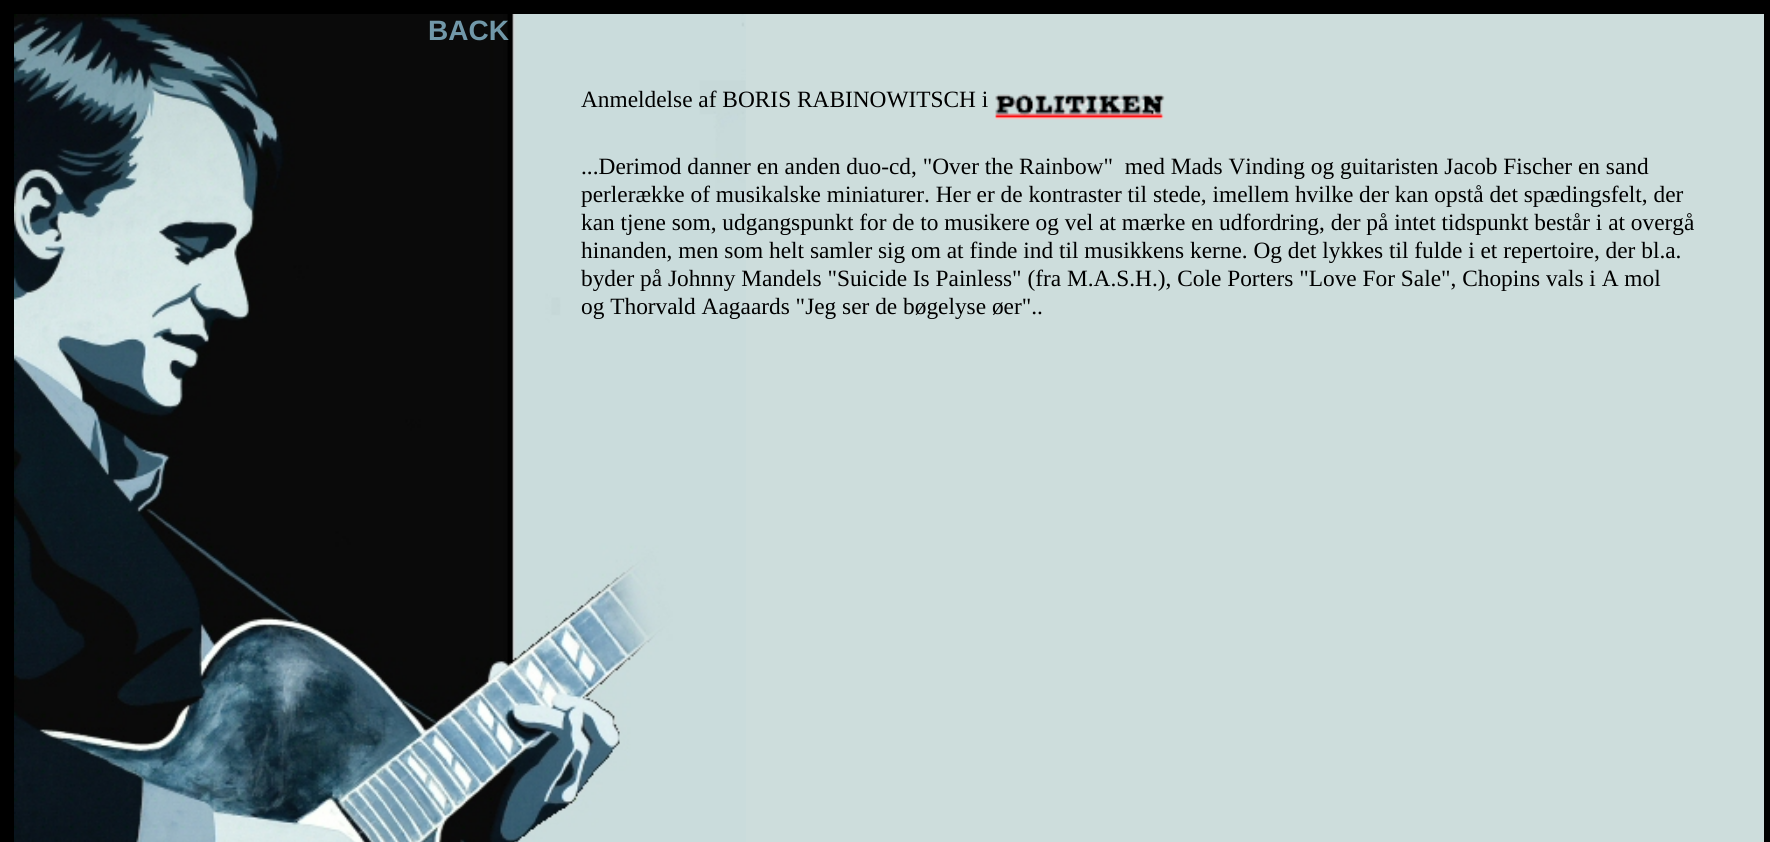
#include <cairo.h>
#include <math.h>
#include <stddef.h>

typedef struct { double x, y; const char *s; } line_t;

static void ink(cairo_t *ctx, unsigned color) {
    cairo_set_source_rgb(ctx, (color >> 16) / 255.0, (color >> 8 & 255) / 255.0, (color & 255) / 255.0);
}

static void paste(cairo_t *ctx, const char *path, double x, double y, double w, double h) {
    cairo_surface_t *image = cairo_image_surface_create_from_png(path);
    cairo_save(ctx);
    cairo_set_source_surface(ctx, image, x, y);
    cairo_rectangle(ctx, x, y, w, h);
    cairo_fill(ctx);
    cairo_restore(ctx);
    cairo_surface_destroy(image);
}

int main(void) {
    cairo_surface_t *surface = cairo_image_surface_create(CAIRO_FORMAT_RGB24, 1770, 842);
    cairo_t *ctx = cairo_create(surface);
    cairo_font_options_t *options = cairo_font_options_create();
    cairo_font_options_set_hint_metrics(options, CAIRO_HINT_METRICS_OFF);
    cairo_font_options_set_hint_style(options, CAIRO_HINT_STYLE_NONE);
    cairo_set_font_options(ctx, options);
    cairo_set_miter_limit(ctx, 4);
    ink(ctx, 0x000000);
    cairo_paint(ctx);
    ink(ctx, 0xCDDDDC);
    cairo_rectangle(ctx, 746, 14, 1018, 828);
    cairo_fill(ctx);
    paste(ctx, "media/1.png", 14, 14, 732, 828);
    cairo_select_font_face(ctx, "Liberation Sans", CAIRO_FONT_SLANT_NORMAL, CAIRO_FONT_WEIGHT_BOLD);
    cairo_set_font_size(ctx, 28);
    ink(ctx, 0x7198A9);
    cairo_move_to(ctx, 428, 40);
    cairo_show_text(ctx, "BACK");
    cairo_select_font_face(ctx, "Liberation Serif", CAIRO_FONT_SLANT_NORMAL, CAIRO_FONT_WEIGHT_NORMAL);
    cairo_set_font_size(ctx, 23.35);
    ink(ctx, 0x000000);
    cairo_move_to(ctx, 581, 107);
    cairo_show_text(ctx, "Anmeldelse af BORIS RABINOWITSCH i");
    paste(ctx, "media/2.png", 995, 94, 170, 26);
    {
        static const line_t items[] = {
            {581, 174, "...Derimod danner en anden duo-cd, \"Over the Rainbow\"  med Mads Vinding og guitaristen Jacob Fischer en sand"},
            {581, 202, "perlerække of musikalske miniaturer. Her er de kontraster til stede, imellem hvilke der kan opstå det spædingsfelt, der"},
            {581, 230, "kan tjene som, udgangspunkt for de to musikere og vel at mærke en udfordring, der på intet tidspunkt består i at overgå"},
            {581, 258, "hinanden, men som helt samler sig om at finde ind til musikkens kerne. Og det lykkes til fulde i et repertoire, der bl.a."},
            {581, 286, "byder på Johnny Mandels \"Suicide Is Painless\" (fra M.A.S.H.), Cole Porters \"Love For Sale\", Chopins vals i A mol"},
            {581, 314, "og Thorvald Aagaards \"Jeg ser de bøgelyse øer\".."},
        };
        for (size_t i = 0; i < sizeof items / sizeof *items; i++) {
            cairo_move_to(ctx, items[i].x, items[i].y);
            cairo_show_text(ctx, items[i].s);
        }
    }
    cairo_surface_write_to_png(surface, "image.png");
    cairo_font_options_destroy(options);
    cairo_destroy(ctx);
    cairo_surface_destroy(surface);
    return 0;
}
